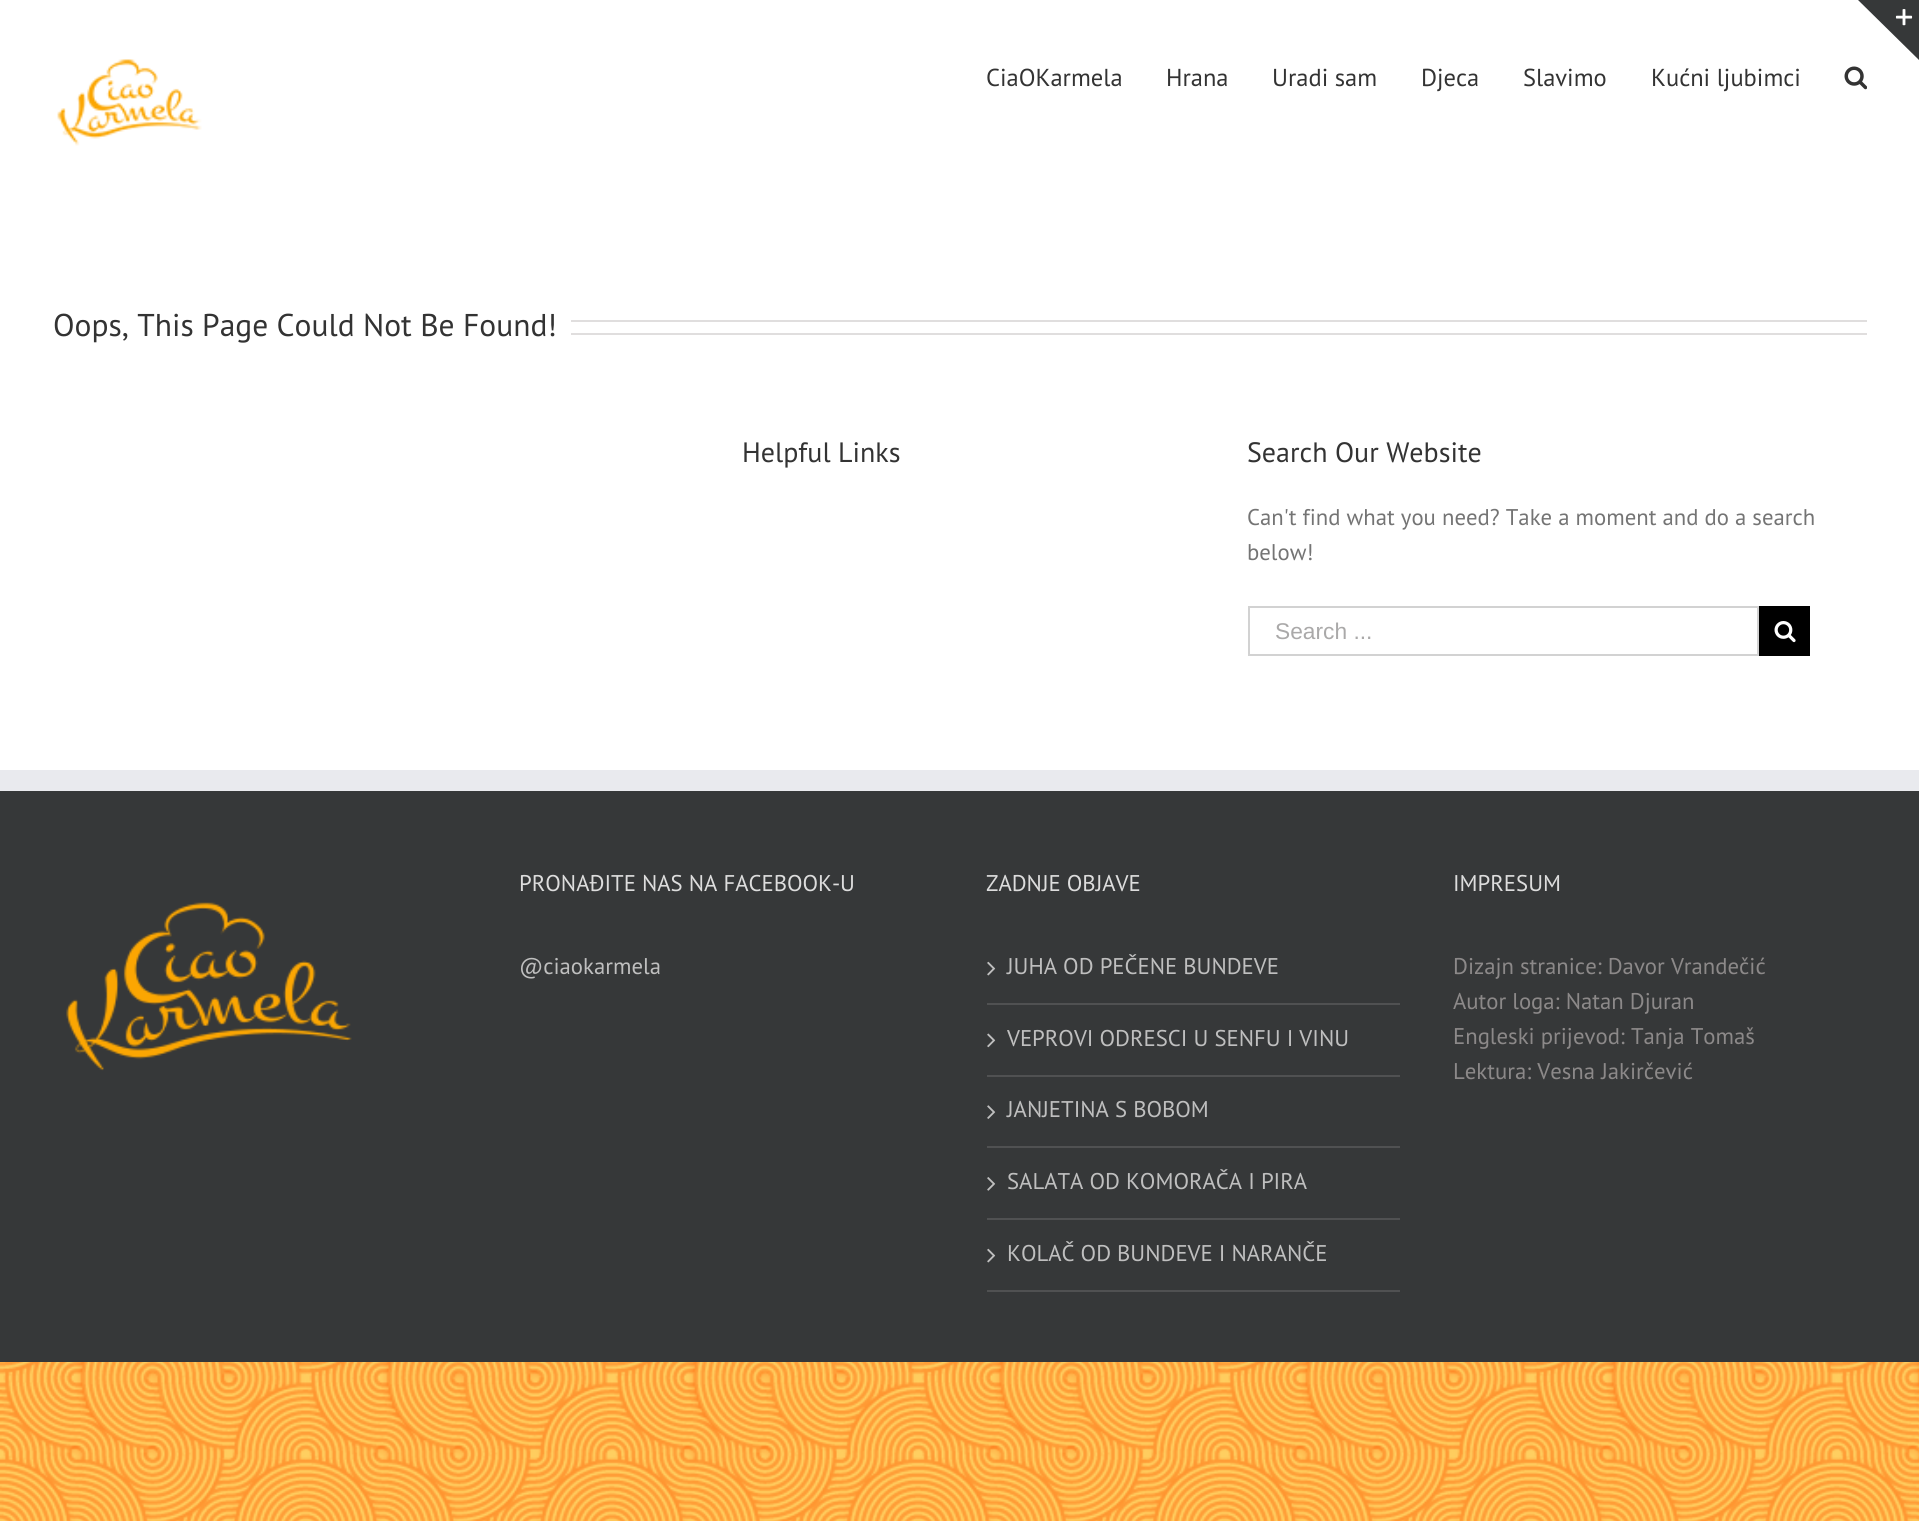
#include <cairo.h>
#include <math.h>
#include <stddef.h>

typedef struct { double x, y; const char *s; } line_t;

static void ink(cairo_t *ctx, unsigned color) {
    cairo_set_source_rgb(ctx, (color >> 16) / 255.0, (color >> 8 & 255) / 255.0, (color & 255) / 255.0);
}

static void paste(cairo_t *ctx, const char *path, double x, double y, double w, double h) {
    cairo_surface_t *image = cairo_image_surface_create_from_png(path);
    cairo_save(ctx);
    cairo_set_source_surface(ctx, image, x, y);
    cairo_rectangle(ctx, x, y, w, h);
    cairo_fill(ctx);
    cairo_restore(ctx);
    cairo_surface_destroy(image);
}

int main(void) {
    cairo_surface_t *surface = cairo_image_surface_create(CAIRO_FORMAT_RGB24, 1919, 1521);
    cairo_t *ctx = cairo_create(surface);
    cairo_font_options_t *options = cairo_font_options_create();
    cairo_font_options_set_hint_metrics(options, CAIRO_HINT_METRICS_OFF);
    cairo_font_options_set_hint_style(options, CAIRO_HINT_STYLE_NONE);
    cairo_set_font_options(ctx, options);
    cairo_set_miter_limit(ctx, 4);
    ink(ctx, 0xFFFFFF);
    cairo_paint(ctx);
    paste(ctx, "media/1.png", 0, 1362, 1919, 159);
    ink(ctx, 0x363839);
    cairo_new_path(ctx);
    cairo_move_to(ctx, 1858, 0);
    cairo_line_to(ctx, 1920, 0);
    cairo_line_to(ctx, 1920, 61);
    cairo_close_path(ctx);
    cairo_fill(ctx);
    paste(ctx, "media/2.png", 1895, 9, 18, 17);
    paste(ctx, "media/3.png", 57, 59, 145, 87);
    cairo_select_font_face(ctx, "PT Sans", CAIRO_FONT_SLANT_NORMAL, CAIRO_FONT_WEIGHT_NORMAL);
    cairo_set_font_size(ctx, 24.5);
    ink(ctx, 0x333333);
    {
        static const line_t items[] = {
            {986, 86, "CiaOKarmela"},
            {1166, 86, "Hrana"},
            {1272, 86, "Uradi sam"},
            {1421, 86, "Djeca"},
            {1523, 86, "Slavimo"},
            {1651, 86, "Kućni ljubimci"},
        };
        for (size_t i = 0; i < sizeof items / sizeof *items; i++) {
            cairo_move_to(ctx, items[i].x, items[i].y);
            cairo_show_text(ctx, items[i].s);
        }
    }
    paste(ctx, "media/4.png", 1844, 66, 23, 24);
    cairo_set_font_size(ctx, 31.5);
    cairo_move_to(ctx, 53, 336);
    cairo_show_text(ctx, "Oops, This Page Could Not Be Found!");
    ink(ctx, 0xE0DEDE);
    cairo_rectangle(ctx, 571, 320, 1296, 2);
    cairo_fill(ctx);
    cairo_rectangle(ctx, 571, 333, 1296, 2);
    cairo_fill(ctx);
    cairo_set_font_size(ctx, 28);
    ink(ctx, 0x333333);
    cairo_move_to(ctx, 742, 462);
    cairo_show_text(ctx, "Helpful Links");
    cairo_move_to(ctx, 1247, 462);
    cairo_show_text(ctx, "Search Our Website");
    cairo_set_font_size(ctx, 22.75);
    ink(ctx, 0x747474);
    cairo_move_to(ctx, 1247, 525);
    cairo_show_text(ctx, "Can't find what you need? Take a moment and do a search");
    cairo_move_to(ctx, 1247, 560);
    cairo_show_text(ctx, "below!");
    cairo_rectangle(ctx, 1249, 607, 509, 48);
    ink(ctx, 0xD2D2D2);
    cairo_stroke(ctx);
    cairo_select_font_face(ctx, "Liberation Sans", CAIRO_FONT_SLANT_NORMAL, CAIRO_FONT_WEIGHT_NORMAL);
    ink(ctx, 0xAAA9A9);
    cairo_move_to(ctx, 1275, 639);
    cairo_show_text(ctx, "Search ...");
    ink(ctx, 0x000000);
    cairo_rectangle(ctx, 1759, 606, 51, 50);
    cairo_fill(ctx);
    paste(ctx, "media/5.png", 1774, 621, 22, 22);
    ink(ctx, 0x363839);
    cairo_rectangle(ctx, 0, 791, 1919, 571);
    cairo_fill(ctx);
    ink(ctx, 0xE9EAEE);
    cairo_rectangle(ctx, 0, 770, 1919, 21);
    cairo_fill(ctx);
    paste(ctx, "media/6.png", 66, 902, 286, 169);
    cairo_select_font_face(ctx, "PT Sans", CAIRO_FONT_SLANT_NORMAL, CAIRO_FONT_WEIGHT_NORMAL);
    ink(ctx, 0xDDDDDD);
    cairo_move_to(ctx, 519, 891);
    cairo_show_text(ctx, "PRONAĐITE NAS NA FACEBOOK-U");
    ink(ctx, 0xBFBFBF);
    cairo_move_to(ctx, 519, 974);
    cairo_show_text(ctx, "@ciaokarmela");
    ink(ctx, 0xDDDDDD);
    cairo_move_to(ctx, 986, 891);
    cairo_show_text(ctx, "ZADNJE OBJAVE");
    ink(ctx, 0x505152);
    cairo_rectangle(ctx, 987, 1003, 413, 2);
    cairo_fill(ctx);
    paste(ctx, "media/7.png", 987, 961, 9, 15);
    ink(ctx, 0xBFBFBF);
    cairo_move_to(ctx, 1007, 974);
    cairo_show_text(ctx, "JUHA OD PEČENE BUNDEVE");
    ink(ctx, 0x505152);
    cairo_rectangle(ctx, 987, 1075, 413, 2);
    cairo_fill(ctx);
    paste(ctx, "media/8.png", 987, 1033, 9, 15);
    ink(ctx, 0xBFBFBF);
    cairo_move_to(ctx, 1007, 1046);
    cairo_show_text(ctx, "VEPROVI ODRESCI U SENFU I VINU");
    ink(ctx, 0x505152);
    cairo_rectangle(ctx, 987, 1146, 413, 2);
    cairo_fill(ctx);
    paste(ctx, "media/9.png", 987, 1105, 9, 14);
    ink(ctx, 0xBFBFBF);
    cairo_move_to(ctx, 1007, 1117);
    cairo_show_text(ctx, "JANJETINA S BOBOM");
    ink(ctx, 0x505152);
    cairo_rectangle(ctx, 987, 1218, 413, 2);
    cairo_fill(ctx);
    paste(ctx, "media/10.png", 987, 1177, 9, 14);
    ink(ctx, 0xBFBFBF);
    cairo_move_to(ctx, 1007, 1189);
    cairo_show_text(ctx, "SALATA OD KOMORAČA I PIRA");
    ink(ctx, 0x505152);
    cairo_rectangle(ctx, 987, 1290, 413, 2);
    cairo_fill(ctx);
    paste(ctx, "media/7.png", 987, 1248, 9, 15);
    ink(ctx, 0xBFBFBF);
    cairo_move_to(ctx, 1007, 1261);
    cairo_show_text(ctx, "KOLAČ OD BUNDEVE I NARANČE");
    ink(ctx, 0xDDDDDD);
    cairo_move_to(ctx, 1453, 891);
    cairo_show_text(ctx, "IMPRESUM");
    ink(ctx, 0x8C8989);
    {
        static const line_t items[] = {
            {1453, 974, "Dizajn stranice: Davor Vrandečić"},
            {1453, 1009, "Autor loga: Natan Djuran"},
            {1453, 1044, "Engleski prijevod: Tanja Tomaš"},
            {1453, 1079, "Lektura: Vesna Jakirčević"},
        };
        for (size_t i = 0; i < sizeof items / sizeof *items; i++) {
            cairo_move_to(ctx, items[i].x, items[i].y);
            cairo_show_text(ctx, items[i].s);
        }
    }
    cairo_surface_write_to_png(surface, "image.png");
    cairo_font_options_destroy(options);
    cairo_destroy(ctx);
    cairo_surface_destroy(surface);
    return 0;
}
